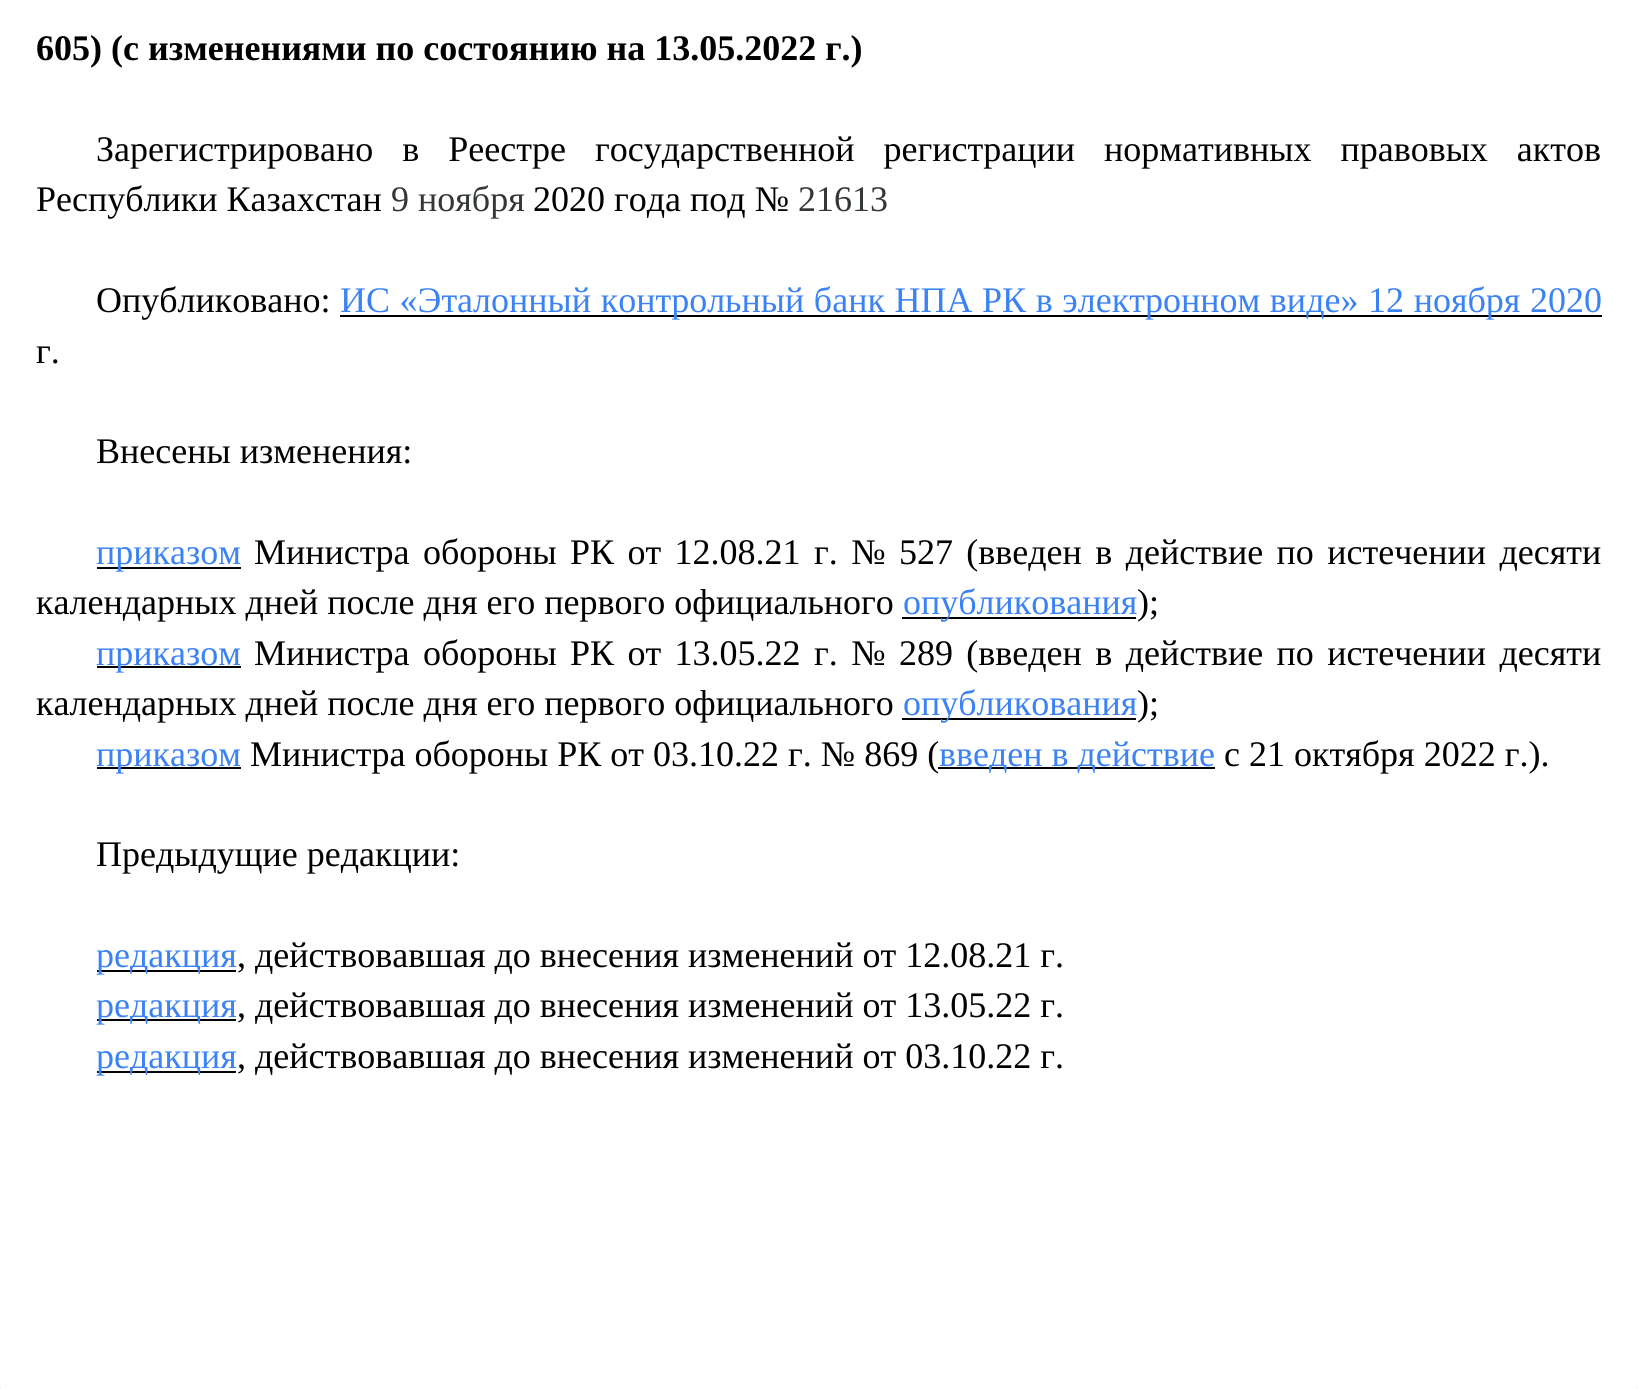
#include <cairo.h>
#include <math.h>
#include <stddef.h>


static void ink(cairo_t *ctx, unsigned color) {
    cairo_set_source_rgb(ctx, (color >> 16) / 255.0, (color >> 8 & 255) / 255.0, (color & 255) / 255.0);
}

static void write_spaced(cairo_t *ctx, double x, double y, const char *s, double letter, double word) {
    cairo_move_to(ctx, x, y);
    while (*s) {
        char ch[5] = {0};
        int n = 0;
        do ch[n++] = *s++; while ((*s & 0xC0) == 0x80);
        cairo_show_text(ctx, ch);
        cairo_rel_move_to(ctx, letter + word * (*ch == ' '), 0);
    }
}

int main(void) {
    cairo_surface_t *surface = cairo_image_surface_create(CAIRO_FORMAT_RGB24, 1638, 1389);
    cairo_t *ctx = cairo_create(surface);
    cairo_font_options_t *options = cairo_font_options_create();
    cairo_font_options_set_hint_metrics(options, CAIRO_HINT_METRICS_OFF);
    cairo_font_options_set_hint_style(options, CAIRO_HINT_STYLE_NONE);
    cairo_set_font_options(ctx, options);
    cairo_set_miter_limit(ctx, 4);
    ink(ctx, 0xF3F4F9);
    cairo_paint(ctx);
    ink(ctx, 0xFFFFFF);
    cairo_new_path(ctx);
    cairo_move_to(ctx, 0, -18);
    cairo_line_to(ctx, 1638, -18);
    cairo_line_to(ctx, 1638, 1382);
    cairo_curve_to(ctx, 1638, 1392, 1630, 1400, 1620, 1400);
    cairo_line_to(ctx, 18, 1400);
    cairo_curve_to(ctx, 8, 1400, 0, 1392, 0, 1382);
    cairo_close_path(ctx);
    cairo_fill(ctx);
    cairo_select_font_face(ctx, "Liberation Serif", CAIRO_FONT_SLANT_NORMAL, CAIRO_FONT_WEIGHT_BOLD);
    cairo_set_font_size(ctx, 36);
    ink(ctx, 0x000000);
    cairo_move_to(ctx, 36, 60);
    cairo_show_text(ctx, "605) (с изменениями по состоянию на 13.05.2022 г.)");
    cairo_select_font_face(ctx, "Liberation Serif", CAIRO_FONT_SLANT_NORMAL, CAIRO_FONT_WEIGHT_NORMAL);
    write_spaced(ctx, 96, 161, "Зарегистрировано в Реестре государственной регистрации нормативных правовых актов", 0, 20);
    cairo_move_to(ctx, 36, 211);
    cairo_show_text(ctx, "Республики Казахстан");
    ink(ctx, 0x333738);
    cairo_move_to(ctx, 391, 211);
    cairo_show_text(ctx, "9 ноября");
    ink(ctx, 0x000000);
    cairo_move_to(ctx, 533, 211);
    cairo_show_text(ctx, "2020 года под №");
    ink(ctx, 0x333738);
    cairo_move_to(ctx, 798, 211);
    cairo_show_text(ctx, "21613");
    ink(ctx, 0x000000);
    cairo_move_to(ctx, 96, 312);
    cairo_show_text(ctx, "Опубликовано:");
    cairo_rectangle(ctx, 340, 315, 1262, 2);
    cairo_fill(ctx);
    ink(ctx, 0x3B82F6);
    write_spaced(ctx, 340, 312, "ИС «Эталонный контрольный банк НПА РК в электронном виде» 12 ноября 2020", 0, 0.6);
    ink(ctx, 0x000000);
    cairo_move_to(ctx, 36, 363);
    cairo_show_text(ctx, "г.");
    cairo_move_to(ctx, 96, 463);
    cairo_show_text(ctx, "Внесены изменения:");
    cairo_rectangle(ctx, 97, 567, 144, 2);
    cairo_fill(ctx);
    ink(ctx, 0x3B82F6);
    cairo_move_to(ctx, 96, 564);
    cairo_show_text(ctx, "приказом");
    ink(ctx, 0x000000);
    write_spaced(ctx, 254, 564, "Министра обороны РК от 12.08.21 г. № 527 (введен в действие по истечении десяти", 0, 4.4);
    cairo_move_to(ctx, 36, 614);
    cairo_show_text(ctx, "календарных дней после дня его первого официального");
    cairo_rectangle(ctx, 902, 617, 234, 2);
    cairo_fill(ctx);
    ink(ctx, 0x3B82F6);
    cairo_move_to(ctx, 903, 614);
    cairo_show_text(ctx, "опубликования");
    ink(ctx, 0x000000);
    cairo_move_to(ctx, 1137, 614);
    cairo_show_text(ctx, ");");
    cairo_rectangle(ctx, 97, 666, 144, 2);
    cairo_fill(ctx);
    ink(ctx, 0x3B82F6);
    cairo_move_to(ctx, 96, 665);
    cairo_show_text(ctx, "приказом");
    ink(ctx, 0x000000);
    write_spaced(ctx, 254, 665, "Министра обороны РК от 13.05.22 г. № 289 (введен в действие по истечении десяти", 0, 4.4);
    cairo_move_to(ctx, 36, 715);
    cairo_show_text(ctx, "календарных дней после дня его первого официального");
    cairo_rectangle(ctx, 902, 718, 234, 2);
    cairo_fill(ctx);
    ink(ctx, 0x3B82F6);
    cairo_move_to(ctx, 903, 715);
    cairo_show_text(ctx, "опубликования");
    ink(ctx, 0x000000);
    cairo_move_to(ctx, 1137, 715);
    cairo_show_text(ctx, ");");
    cairo_rectangle(ctx, 97, 767, 144, 2);
    cairo_fill(ctx);
    ink(ctx, 0x3B82F6);
    cairo_move_to(ctx, 96, 766);
    cairo_show_text(ctx, "приказом");
    ink(ctx, 0x000000);
    cairo_move_to(ctx, 250, 766);
    cairo_show_text(ctx, "Министра обороны РК от 03.10.22 г. № 869 (");
    cairo_rectangle(ctx, 938, 767, 277, 2);
    cairo_fill(ctx);
    ink(ctx, 0x3B82F6);
    cairo_move_to(ctx, 939, 766);
    cairo_show_text(ctx, "введен в действие");
    ink(ctx, 0x000000);
    cairo_move_to(ctx, 1224, 766);
    cairo_show_text(ctx, "с 21 октября 2022 г.).");
    cairo_move_to(ctx, 96, 866);
    cairo_show_text(ctx, "Предыдущие редакции:");
    cairo_rectangle(ctx, 97, 970, 139, 2);
    cairo_fill(ctx);
    ink(ctx, 0x3B82F6);
    cairo_move_to(ctx, 96, 967);
    cairo_show_text(ctx, "редакция");
    ink(ctx, 0x000000);
    cairo_move_to(ctx, 237, 967);
    cairo_show_text(ctx, ", действовавшая до внесения изменений от 12.08.21 г.");
    cairo_rectangle(ctx, 97, 1019, 139, 2);
    cairo_fill(ctx);
    ink(ctx, 0x3B82F6);
    cairo_move_to(ctx, 96, 1017);
    cairo_show_text(ctx, "редакция");
    ink(ctx, 0x000000);
    cairo_move_to(ctx, 237, 1017);
    cairo_show_text(ctx, ", действовавшая до внесения изменений от 13.05.22 г.");
    cairo_rectangle(ctx, 97, 1071, 139, 2);
    cairo_fill(ctx);
    ink(ctx, 0x3B82F6);
    cairo_move_to(ctx, 96, 1068);
    cairo_show_text(ctx, "редакция");
    ink(ctx, 0x000000);
    cairo_move_to(ctx, 237, 1068);
    cairo_show_text(ctx, ", действовавшая до внесения изменений от 03.10.22 г.");
    cairo_surface_write_to_png(surface, "image.png");
    cairo_font_options_destroy(options);
    cairo_destroy(ctx);
    cairo_surface_destroy(surface);
    return 0;
}
